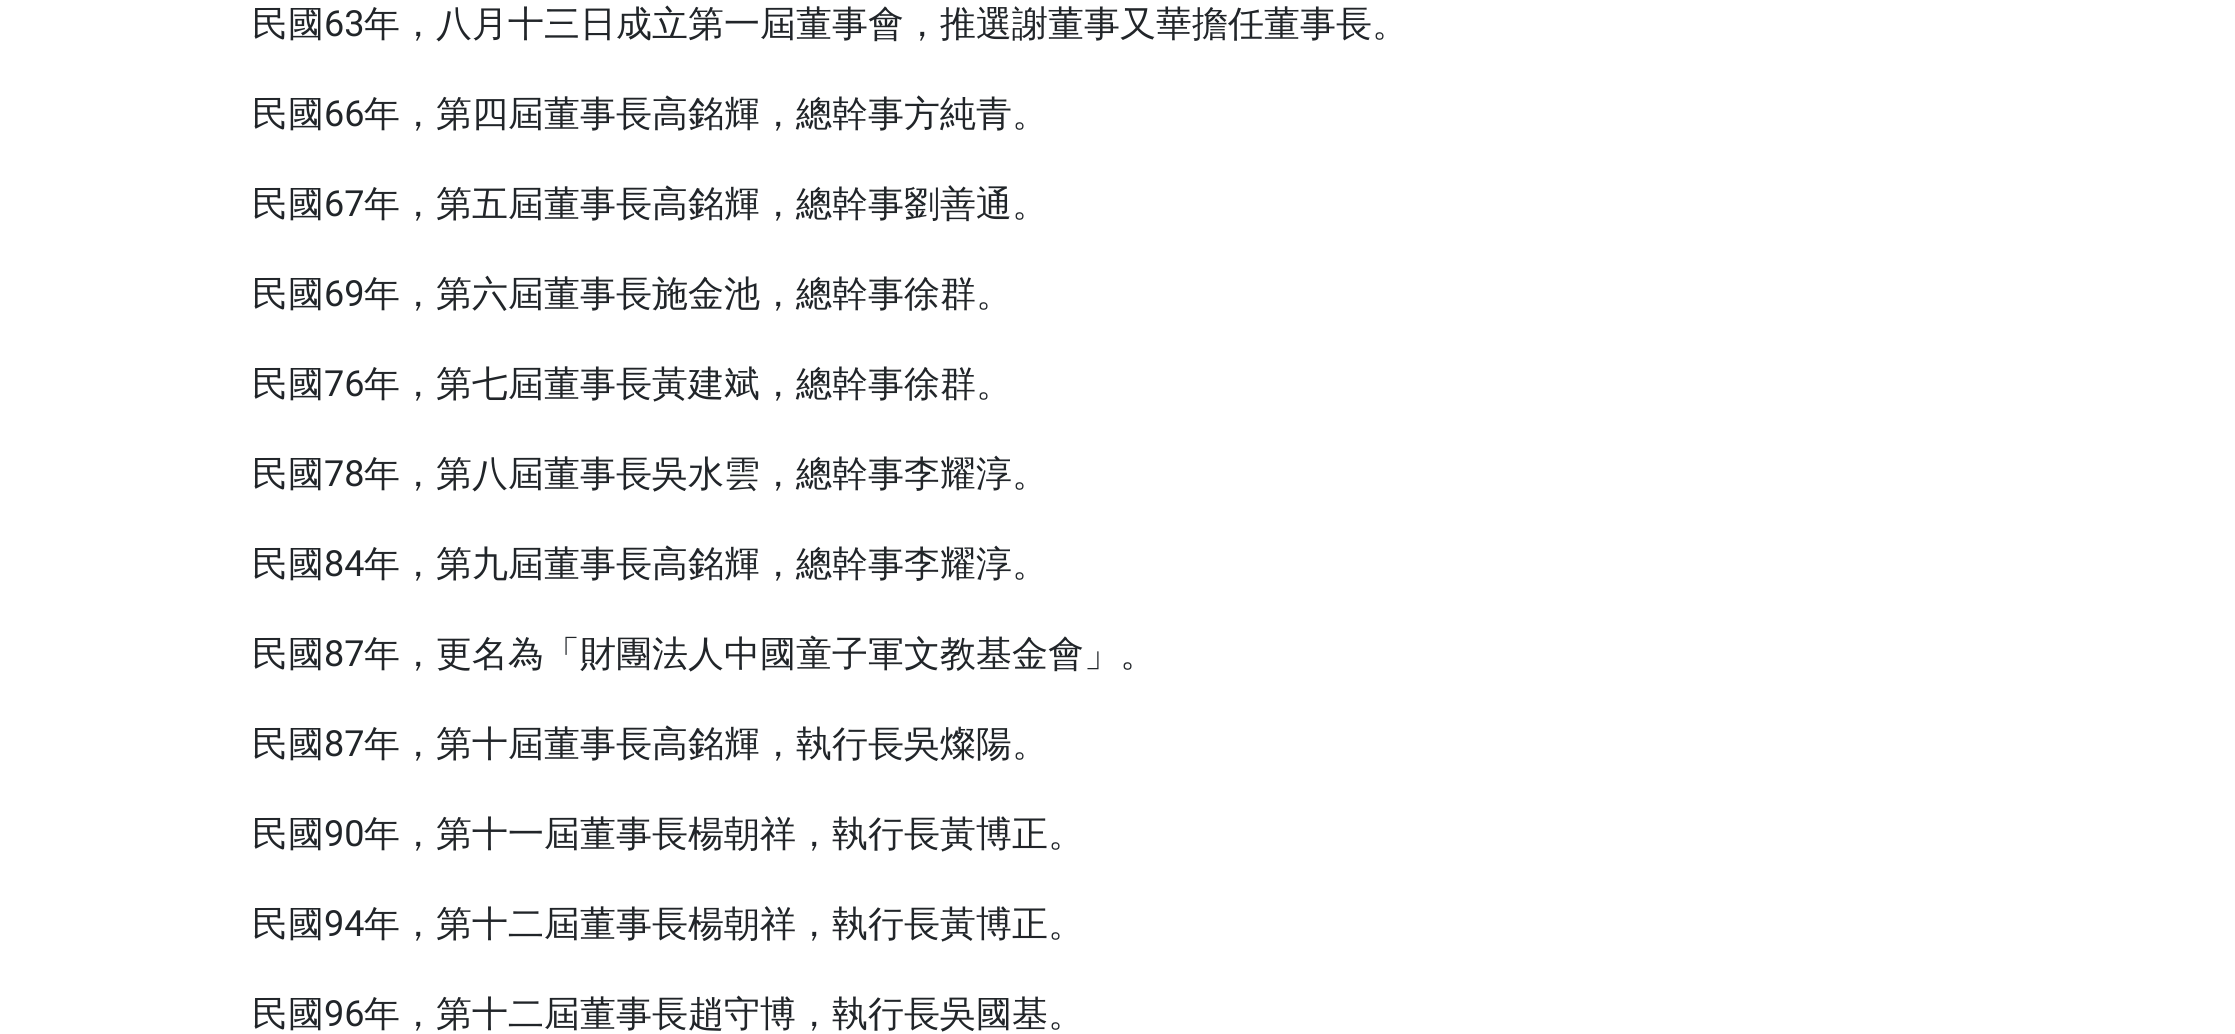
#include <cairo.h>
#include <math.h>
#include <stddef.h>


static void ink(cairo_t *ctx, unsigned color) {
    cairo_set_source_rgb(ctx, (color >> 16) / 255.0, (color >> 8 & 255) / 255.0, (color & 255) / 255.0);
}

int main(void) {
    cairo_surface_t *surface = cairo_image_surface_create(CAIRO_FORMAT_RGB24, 2235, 1034);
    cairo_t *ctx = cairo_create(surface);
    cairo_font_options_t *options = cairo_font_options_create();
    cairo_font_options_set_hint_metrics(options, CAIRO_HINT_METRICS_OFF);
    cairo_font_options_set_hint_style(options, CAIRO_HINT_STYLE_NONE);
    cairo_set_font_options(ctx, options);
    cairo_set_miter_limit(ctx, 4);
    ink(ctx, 0xFFFFFF);
    cairo_paint(ctx);
    cairo_select_font_face(ctx, "WenQuanYi Zen Hei Medium", CAIRO_FONT_SLANT_NORMAL, CAIRO_FONT_WEIGHT_NORMAL);
    cairo_set_font_size(ctx, 36);
    ink(ctx, 0x212529);
    cairo_move_to(ctx, 252, 36);
    cairo_show_text(ctx, "民國");
    cairo_select_font_face(ctx, "Roboto", CAIRO_FONT_SLANT_NORMAL, CAIRO_FONT_WEIGHT_NORMAL);
    cairo_move_to(ctx, 324, 36);
    cairo_show_text(ctx, "63");
    cairo_select_font_face(ctx, "WenQuanYi Zen Hei Medium", CAIRO_FONT_SLANT_NORMAL, CAIRO_FONT_WEIGHT_NORMAL);
    cairo_move_to(ctx, 364, 36);
    cairo_show_text(ctx, "年，八月十三日成立第一屆董事會，推選謝董事又華擔任董事長。");
    cairo_move_to(ctx, 252, 126);
    cairo_show_text(ctx, "民國");
    cairo_select_font_face(ctx, "Roboto", CAIRO_FONT_SLANT_NORMAL, CAIRO_FONT_WEIGHT_NORMAL);
    cairo_move_to(ctx, 324, 126);
    cairo_show_text(ctx, "66");
    cairo_select_font_face(ctx, "WenQuanYi Zen Hei Medium", CAIRO_FONT_SLANT_NORMAL, CAIRO_FONT_WEIGHT_NORMAL);
    cairo_move_to(ctx, 364, 126);
    cairo_show_text(ctx, "年，第四屆董事長高銘輝，總幹事方純青。");
    cairo_move_to(ctx, 252, 216);
    cairo_show_text(ctx, "民國");
    cairo_select_font_face(ctx, "Roboto", CAIRO_FONT_SLANT_NORMAL, CAIRO_FONT_WEIGHT_NORMAL);
    cairo_move_to(ctx, 324, 216);
    cairo_show_text(ctx, "67");
    cairo_select_font_face(ctx, "WenQuanYi Zen Hei Medium", CAIRO_FONT_SLANT_NORMAL, CAIRO_FONT_WEIGHT_NORMAL);
    cairo_move_to(ctx, 364, 216);
    cairo_show_text(ctx, "年，第五屆董事長高銘輝，總幹事劉善通。");
    cairo_move_to(ctx, 252, 306);
    cairo_show_text(ctx, "民國");
    cairo_select_font_face(ctx, "Roboto", CAIRO_FONT_SLANT_NORMAL, CAIRO_FONT_WEIGHT_NORMAL);
    cairo_move_to(ctx, 324, 306);
    cairo_show_text(ctx, "69");
    cairo_select_font_face(ctx, "WenQuanYi Zen Hei Medium", CAIRO_FONT_SLANT_NORMAL, CAIRO_FONT_WEIGHT_NORMAL);
    cairo_move_to(ctx, 364, 306);
    cairo_show_text(ctx, "年，第六屆董事長施金池，總幹事徐群。");
    cairo_move_to(ctx, 252, 396);
    cairo_show_text(ctx, "民國");
    cairo_select_font_face(ctx, "Roboto", CAIRO_FONT_SLANT_NORMAL, CAIRO_FONT_WEIGHT_NORMAL);
    cairo_move_to(ctx, 324, 396);
    cairo_show_text(ctx, "76");
    cairo_select_font_face(ctx, "WenQuanYi Zen Hei Medium", CAIRO_FONT_SLANT_NORMAL, CAIRO_FONT_WEIGHT_NORMAL);
    cairo_move_to(ctx, 364, 396);
    cairo_show_text(ctx, "年，第七屆董事長黃建斌，總幹事徐群。");
    cairo_move_to(ctx, 252, 486);
    cairo_show_text(ctx, "民國");
    cairo_select_font_face(ctx, "Roboto", CAIRO_FONT_SLANT_NORMAL, CAIRO_FONT_WEIGHT_NORMAL);
    cairo_move_to(ctx, 324, 486);
    cairo_show_text(ctx, "78");
    cairo_select_font_face(ctx, "WenQuanYi Zen Hei Medium", CAIRO_FONT_SLANT_NORMAL, CAIRO_FONT_WEIGHT_NORMAL);
    cairo_move_to(ctx, 364, 486);
    cairo_show_text(ctx, "年，第八屆董事長吳水雲，總幹事李耀淳。");
    cairo_move_to(ctx, 252, 576);
    cairo_show_text(ctx, "民國");
    cairo_select_font_face(ctx, "Roboto", CAIRO_FONT_SLANT_NORMAL, CAIRO_FONT_WEIGHT_NORMAL);
    cairo_move_to(ctx, 324, 576);
    cairo_show_text(ctx, "84");
    cairo_select_font_face(ctx, "WenQuanYi Zen Hei Medium", CAIRO_FONT_SLANT_NORMAL, CAIRO_FONT_WEIGHT_NORMAL);
    cairo_move_to(ctx, 364, 576);
    cairo_show_text(ctx, "年，第九屆董事長高銘輝，總幹事李耀淳。");
    cairo_move_to(ctx, 252, 666);
    cairo_show_text(ctx, "民國");
    cairo_select_font_face(ctx, "Roboto", CAIRO_FONT_SLANT_NORMAL, CAIRO_FONT_WEIGHT_NORMAL);
    cairo_move_to(ctx, 324, 666);
    cairo_show_text(ctx, "87");
    cairo_select_font_face(ctx, "WenQuanYi Zen Hei Medium", CAIRO_FONT_SLANT_NORMAL, CAIRO_FONT_WEIGHT_NORMAL);
    cairo_move_to(ctx, 364, 666);
    cairo_show_text(ctx, "年，更名為「財團法人中國童子軍文教基金會」。");
    cairo_move_to(ctx, 252, 756);
    cairo_show_text(ctx, "民國");
    cairo_select_font_face(ctx, "Roboto", CAIRO_FONT_SLANT_NORMAL, CAIRO_FONT_WEIGHT_NORMAL);
    cairo_move_to(ctx, 324, 756);
    cairo_show_text(ctx, "87");
    cairo_select_font_face(ctx, "WenQuanYi Zen Hei Medium", CAIRO_FONT_SLANT_NORMAL, CAIRO_FONT_WEIGHT_NORMAL);
    cairo_move_to(ctx, 364, 756);
    cairo_show_text(ctx, "年，第十屆董事長高銘輝，執行長吳燦陽。");
    cairo_move_to(ctx, 252, 846);
    cairo_show_text(ctx, "民國");
    cairo_select_font_face(ctx, "Roboto", CAIRO_FONT_SLANT_NORMAL, CAIRO_FONT_WEIGHT_NORMAL);
    cairo_move_to(ctx, 324, 846);
    cairo_show_text(ctx, "90");
    cairo_select_font_face(ctx, "WenQuanYi Zen Hei Medium", CAIRO_FONT_SLANT_NORMAL, CAIRO_FONT_WEIGHT_NORMAL);
    cairo_move_to(ctx, 364, 846);
    cairo_show_text(ctx, "年，第十一屆董事長楊朝祥，執行長黃博正。");
    cairo_move_to(ctx, 252, 936);
    cairo_show_text(ctx, "民國");
    cairo_select_font_face(ctx, "Roboto", CAIRO_FONT_SLANT_NORMAL, CAIRO_FONT_WEIGHT_NORMAL);
    cairo_move_to(ctx, 324, 936);
    cairo_show_text(ctx, "94");
    cairo_select_font_face(ctx, "WenQuanYi Zen Hei Medium", CAIRO_FONT_SLANT_NORMAL, CAIRO_FONT_WEIGHT_NORMAL);
    cairo_move_to(ctx, 364, 936);
    cairo_show_text(ctx, "年，第十二屆董事長楊朝祥，執行長黃博正。");
    cairo_move_to(ctx, 252, 1026);
    cairo_show_text(ctx, "民國");
    cairo_select_font_face(ctx, "Roboto", CAIRO_FONT_SLANT_NORMAL, CAIRO_FONT_WEIGHT_NORMAL);
    cairo_move_to(ctx, 324, 1026);
    cairo_show_text(ctx, "96");
    cairo_select_font_face(ctx, "WenQuanYi Zen Hei Medium", CAIRO_FONT_SLANT_NORMAL, CAIRO_FONT_WEIGHT_NORMAL);
    cairo_move_to(ctx, 364, 1026);
    cairo_show_text(ctx, "年，第十二屆董事長趙守博，執行長吳國基。");
    cairo_surface_write_to_png(surface, "image.png");
    cairo_font_options_destroy(options);
    cairo_destroy(ctx);
    cairo_surface_destroy(surface);
    return 0;
}
